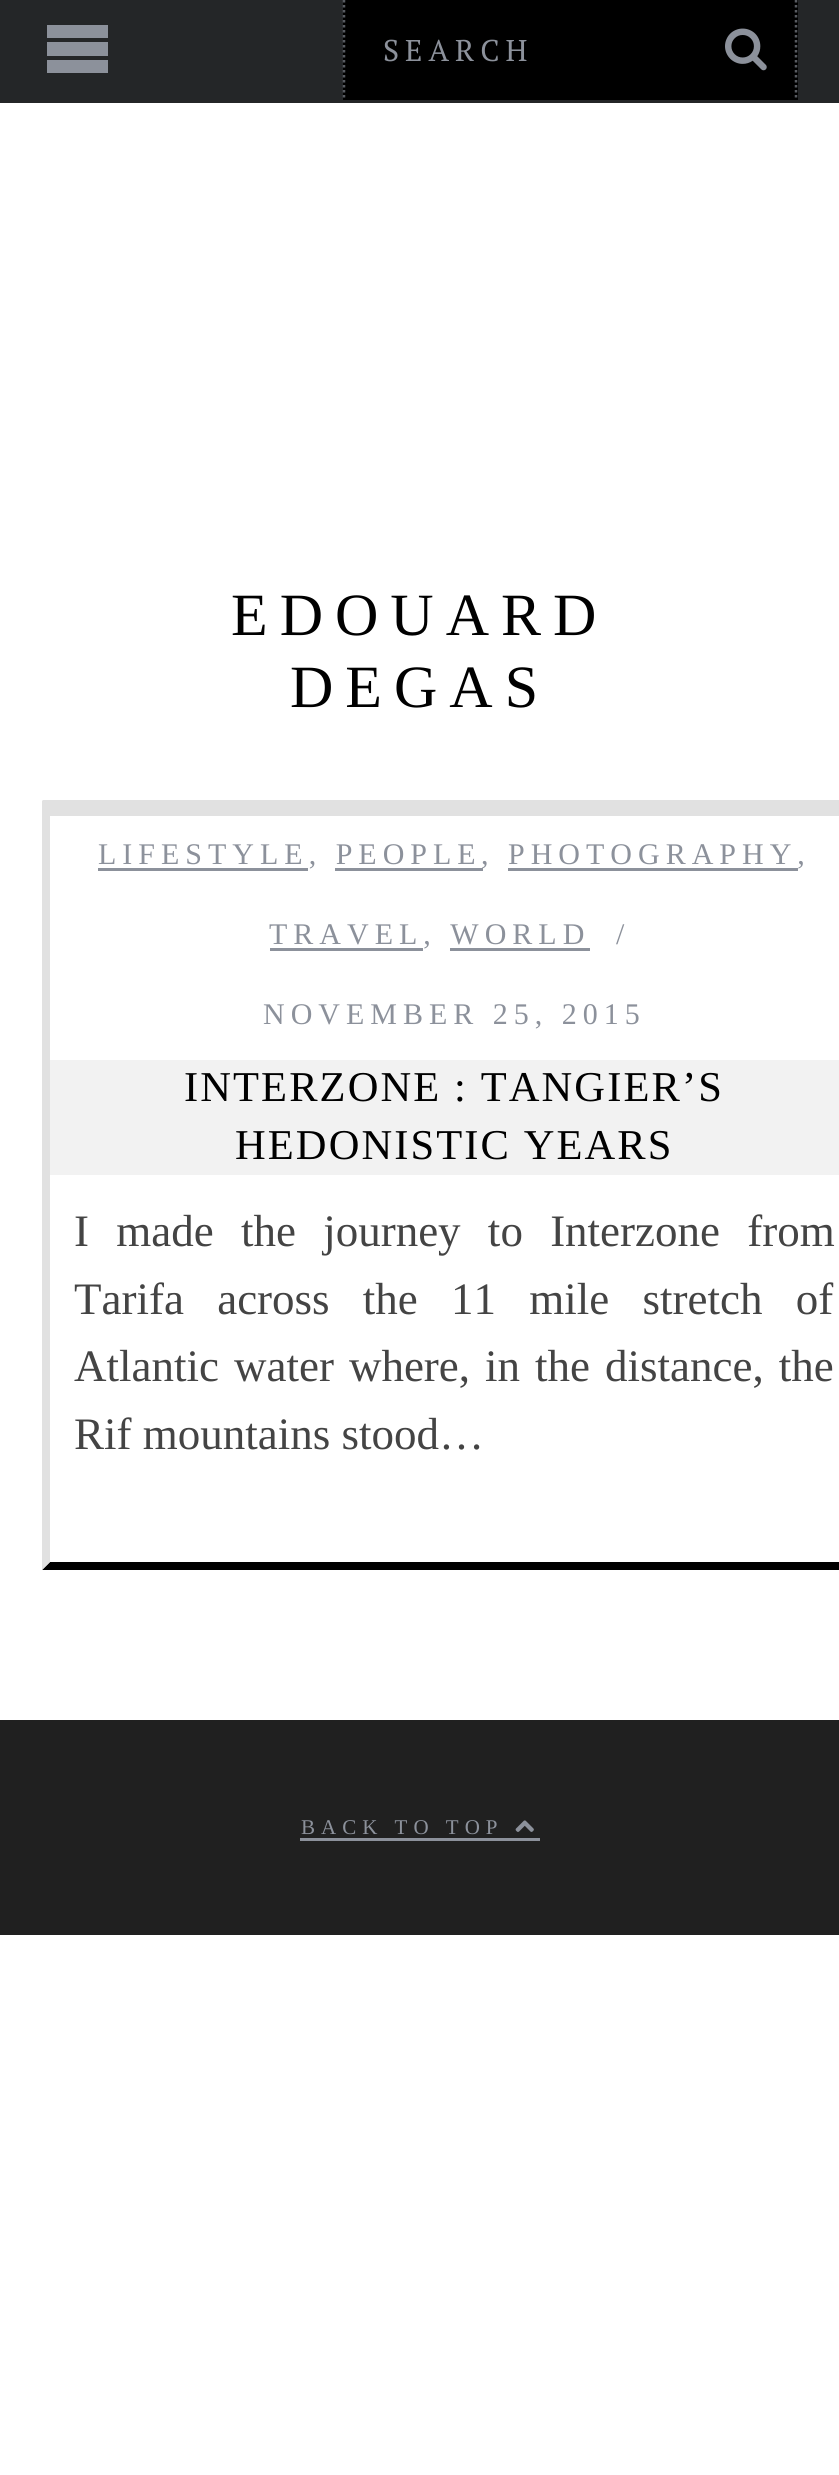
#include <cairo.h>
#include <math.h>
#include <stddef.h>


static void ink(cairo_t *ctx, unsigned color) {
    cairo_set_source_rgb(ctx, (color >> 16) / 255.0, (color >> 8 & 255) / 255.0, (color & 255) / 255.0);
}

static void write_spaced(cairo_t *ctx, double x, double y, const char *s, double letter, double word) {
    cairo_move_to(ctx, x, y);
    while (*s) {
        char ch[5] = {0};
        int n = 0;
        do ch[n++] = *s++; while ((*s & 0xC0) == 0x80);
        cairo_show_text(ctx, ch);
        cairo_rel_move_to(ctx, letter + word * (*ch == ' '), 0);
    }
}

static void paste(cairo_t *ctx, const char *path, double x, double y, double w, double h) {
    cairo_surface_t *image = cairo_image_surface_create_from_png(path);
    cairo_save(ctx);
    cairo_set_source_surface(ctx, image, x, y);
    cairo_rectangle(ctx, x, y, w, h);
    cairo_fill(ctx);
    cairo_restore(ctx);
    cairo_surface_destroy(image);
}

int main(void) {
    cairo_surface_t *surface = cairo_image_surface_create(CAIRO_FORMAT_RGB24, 839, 2475);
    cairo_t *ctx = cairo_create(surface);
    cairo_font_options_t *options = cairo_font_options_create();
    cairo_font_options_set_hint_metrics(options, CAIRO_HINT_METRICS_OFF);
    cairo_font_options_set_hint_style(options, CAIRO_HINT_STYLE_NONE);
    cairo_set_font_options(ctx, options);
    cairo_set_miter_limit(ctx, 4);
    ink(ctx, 0xFFFFFF);
    cairo_paint(ctx);
    ink(ctx, 0x242628);
    cairo_rectangle(ctx, 0, 0, 839, 103);
    cairo_fill(ctx);
    ink(ctx, 0x8C919B);
    cairo_new_path(ctx);
    cairo_move_to(ctx, 47, 25);
    cairo_line_to(ctx, 108, 25);
    cairo_line_to(ctx, 108, 38);
    cairo_line_to(ctx, 47, 38);
    cairo_close_path(ctx);
    cairo_move_to(ctx, 47, 42);
    cairo_line_to(ctx, 108, 42);
    cairo_line_to(ctx, 108, 56);
    cairo_line_to(ctx, 47, 56);
    cairo_close_path(ctx);
    cairo_move_to(ctx, 47, 60);
    cairo_line_to(ctx, 108, 60);
    cairo_line_to(ctx, 108, 73);
    cairo_line_to(ctx, 47, 73);
    cairo_close_path(ctx);
    cairo_fill(ctx);
    ink(ctx, 0x000000);
    cairo_rectangle(ctx, 343, 0, 455, 100);
    cairo_fill(ctx);
    cairo_new_path(ctx);
    cairo_move_to(ctx, 796, 0);
    cairo_line_to(ctx, 796, 100);
    ink(ctx, 0x585B61);
    cairo_set_line_width(ctx, 2.5);
    cairo_set_dash(ctx, (double[]){2.5, 2.5}, 2, 0);
    cairo_stroke(ctx);
    cairo_new_path(ctx);
    cairo_move_to(ctx, 344, 0);
    cairo_line_to(ctx, 344, 100);
    cairo_stroke(ctx);
    cairo_select_font_face(ctx, "PT Serif", CAIRO_FONT_SLANT_NORMAL, CAIRO_FONT_WEIGHT_NORMAL);
    cairo_set_font_size(ctx, 30);
    ink(ctx, 0x8C919B);
    write_spaced(ctx, 383, 61, "SEARCH", 6, 0);
    paste(ctx, "media/1.png", 725, 28, 42, 43);
    cairo_select_font_face(ctx, "Liberation Serif", CAIRO_FONT_SLANT_NORMAL, CAIRO_FONT_WEIGHT_NORMAL);
    cairo_set_font_size(ctx, 60);
    ink(ctx, 0x000000);
    write_spaced(ctx, 231, 635, "EDOUARD", 12, 0);
    write_spaced(ctx, 290, 707, "DEGAS", 12, 0);
    ink(ctx, 0xE1E1E1);
    cairo_rectangle(ctx, 43, 800, 796, 8);
    cairo_fill(ctx);
    ink(ctx, 0x000000);
    cairo_new_path(ctx);
    cairo_move_to(ctx, 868, 1570);
    cairo_line_to(ctx, 42, 1570);
    cairo_line_to(ctx, 50, 1562);
    cairo_line_to(ctx, 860, 1562);
    cairo_close_path(ctx);
    cairo_fill(ctx);
    ink(ctx, 0xE1E1E1);
    cairo_new_path(ctx);
    cairo_move_to(ctx, 42, 1570);
    cairo_line_to(ctx, 42, 800);
    cairo_line_to(ctx, 50, 808);
    cairo_line_to(ctx, 50, 1562);
    cairo_close_path(ctx);
    cairo_fill(ctx);
    cairo_rectangle(ctx, 50, 808, 789, 8);
    cairo_fill(ctx);
    ink(ctx, 0x8C919B);
    cairo_rectangle(ctx, 98, 868, 210, 3);
    cairo_fill(ctx);
    cairo_set_font_size(ctx, 30);
    write_spaced(ctx, 98, 864, "LIFESTYLE, PEOPLE", 6, 0);
    cairo_rectangle(ctx, 335, 868, 148, 3);
    cairo_fill(ctx);
    write_spaced(ctx, 481, 864, ", PHOTOGRAPHY,", 6, 0);
    cairo_rectangle(ctx, 508, 868, 290, 3);
    cairo_fill(ctx);
    cairo_rectangle(ctx, 270, 948, 153, 3);
    cairo_fill(ctx);
    write_spaced(ctx, 269, 944, "TRAVEL, WORLD", 6, 0);
    write_spaced(ctx, 616, 944, "/", 6, 0);
    cairo_rectangle(ctx, 450, 948, 140, 3);
    cairo_fill(ctx);
    write_spaced(ctx, 263, 1024, "NOVEMBER 25, 2015", 6, 0);
    ink(ctx, 0xF2F2F2);
    cairo_rectangle(ctx, 50, 1060, 789, 115);
    cairo_fill(ctx);
    cairo_set_font_size(ctx, 42.5);
    ink(ctx, 0x000000);
    write_spaced(ctx, 184, 1101, "INTERZONE : TANGIER’S", 2.1, 0);
    write_spaced(ctx, 235, 1159, "HEDONISTIC YEARS", 2.1, 0);
    cairo_set_font_size(ctx, 45);
    ink(ctx, 0x444444);
    write_spaced(ctx, 74, 1246, "I made the journey to Interzone from", 0, 16);
    write_spaced(ctx, 74, 1314, "Tarifa across the 11 mile stretch of", 0, 22);
    write_spaced(ctx, 74, 1381, "Atlantic water where, in the distance, the", 0, 3.75);
    cairo_move_to(ctx, 74, 1449);
    cairo_show_text(ctx, "Rif mountains stood…");
    ink(ctx, 0x202020);
    cairo_rectangle(ctx, 0, 1720, 839, 215);
    cairo_fill(ctx);
    cairo_set_font_size(ctx, 21);
    ink(ctx, 0x8C919B);
    write_spaced(ctx, 301, 1834, "BACK TO TOP", 6, 0);
    cairo_rectangle(ctx, 300, 1838, 240, 3);
    cairo_fill(ctx);
    paste(ctx, "media/2.png", 515, 1820, 19, 12);
    cairo_surface_write_to_png(surface, "image.png");
    cairo_font_options_destroy(options);
    cairo_destroy(ctx);
    cairo_surface_destroy(surface);
    return 0;
}
